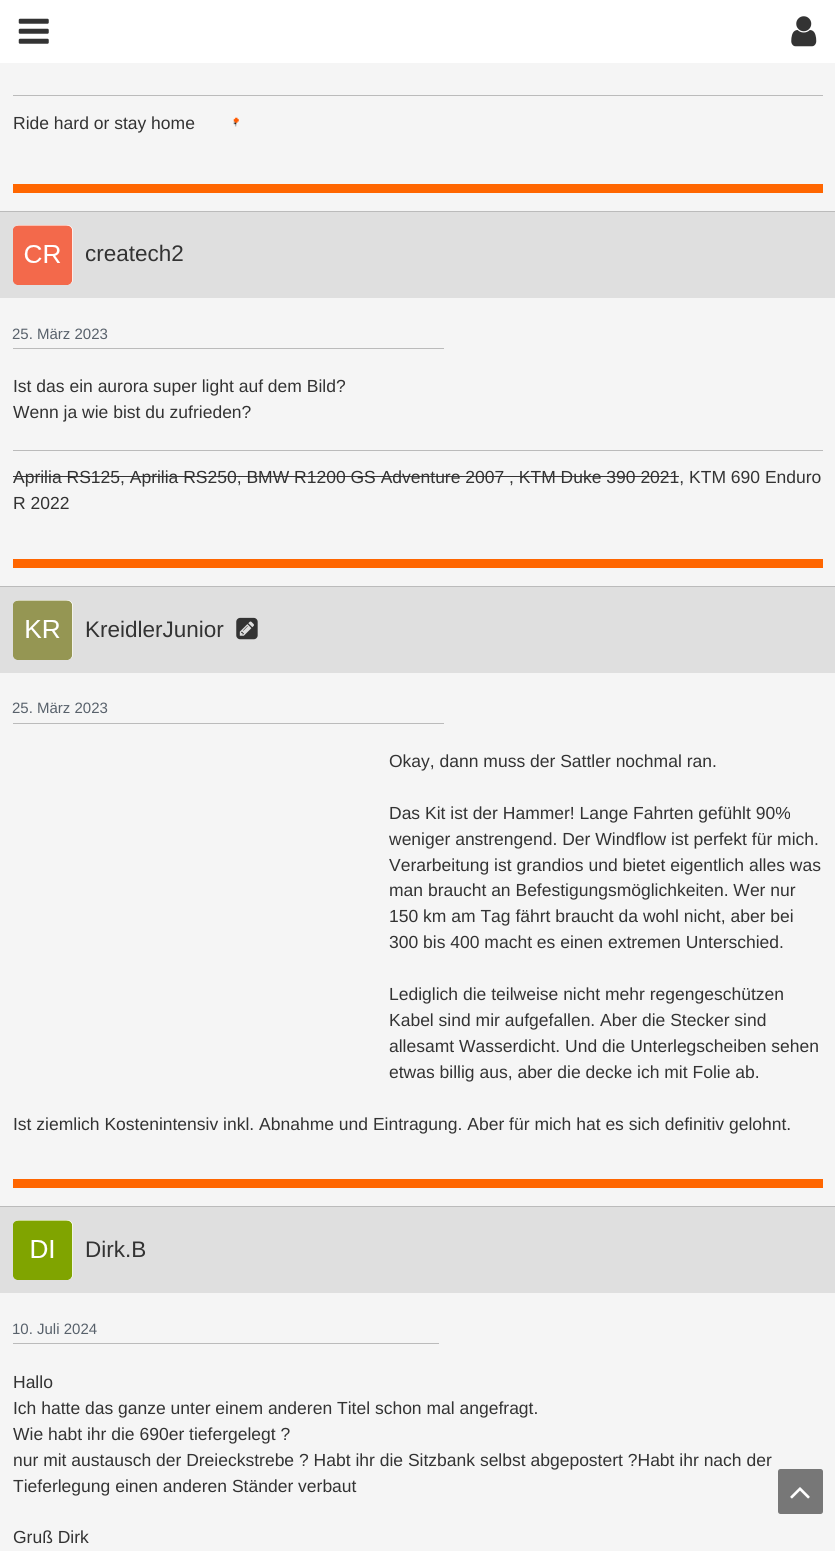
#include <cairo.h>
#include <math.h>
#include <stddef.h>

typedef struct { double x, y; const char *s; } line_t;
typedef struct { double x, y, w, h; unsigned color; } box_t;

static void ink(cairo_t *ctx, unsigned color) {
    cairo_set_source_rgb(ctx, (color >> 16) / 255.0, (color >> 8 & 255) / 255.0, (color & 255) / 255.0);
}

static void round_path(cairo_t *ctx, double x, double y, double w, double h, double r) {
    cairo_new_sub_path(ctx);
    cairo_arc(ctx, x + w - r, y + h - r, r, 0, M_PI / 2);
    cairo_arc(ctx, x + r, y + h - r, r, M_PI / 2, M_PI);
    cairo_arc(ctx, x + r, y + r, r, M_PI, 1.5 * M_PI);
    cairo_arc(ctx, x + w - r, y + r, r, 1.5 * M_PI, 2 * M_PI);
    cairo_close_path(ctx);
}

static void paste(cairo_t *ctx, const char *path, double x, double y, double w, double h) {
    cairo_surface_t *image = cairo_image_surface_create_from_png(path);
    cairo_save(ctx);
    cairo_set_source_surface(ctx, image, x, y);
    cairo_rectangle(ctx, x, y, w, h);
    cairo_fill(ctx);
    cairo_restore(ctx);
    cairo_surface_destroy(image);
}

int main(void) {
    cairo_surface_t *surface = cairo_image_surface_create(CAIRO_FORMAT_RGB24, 835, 1551);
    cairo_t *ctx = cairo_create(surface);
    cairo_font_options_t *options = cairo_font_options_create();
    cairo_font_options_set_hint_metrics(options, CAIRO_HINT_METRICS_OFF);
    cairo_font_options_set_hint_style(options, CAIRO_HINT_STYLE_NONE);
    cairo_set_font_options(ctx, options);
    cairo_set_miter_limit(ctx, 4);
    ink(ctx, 0xF5F5F5);
    cairo_paint(ctx);
    ink(ctx, 0xFFFFFF);
    cairo_rectangle(ctx, 0, 0, 835, 63);
    cairo_fill(ctx);
    paste(ctx, "media/1.png", 18, 18, 31, 26);
    paste(ctx, "media/2.png", 791, 16, 26, 31);
    ink(ctx, 0xFF6600);
    cairo_rectangle(ctx, 13, 184, 810, 9);
    cairo_fill(ctx);
    ink(ctx, 0xBBBBBB);
    cairo_rectangle(ctx, 13, 95, 810, 1);
    cairo_fill(ctx);
    cairo_select_font_face(ctx, "Liberation Sans", CAIRO_FONT_SLANT_NORMAL, CAIRO_FONT_WEIGHT_NORMAL);
    cairo_set_font_size(ctx, 17.5);
    ink(ctx, 0x333333);
    cairo_move_to(ctx, 13, 129);
    cairo_show_text(ctx, "Ride hard or stay home");
    paste(ctx, "media/3.png", 233, 117, 6, 10);
    {
        static const box_t items[] = {
            {13, 559, 810, 9, 0xFF6600},
            {0, 212, 835, 86, 0xDFDFDF},
            {0, 211, 835, 1, 0xBBBBBB},
        };
        for (size_t i = 0; i < sizeof items / sizeof *items; i++) {
            ink(ctx, items[i].color);
            cairo_rectangle(ctx, items[i].x, items[i].y, items[i].w, items[i].h);
            cairo_fill(ctx);
        }
    }
    ink(ctx, 0xFFFFFF);
    round_path(ctx, 13, 225, 60, 60, 6);
    cairo_fill(ctx);
    paste(ctx, "media/4.png", 13, 225, 60, 60);
    cairo_set_font_size(ctx, 22.5);
    ink(ctx, 0x333333);
    cairo_move_to(ctx, 85, 261);
    cairo_show_text(ctx, "createch2");
    ink(ctx, 0xBBBBBB);
    cairo_rectangle(ctx, 13, 348, 431, 1);
    cairo_fill(ctx);
    cairo_set_font_size(ctx, 15);
    ink(ctx, 0x58616B);
    cairo_move_to(ctx, 12, 339);
    cairo_show_text(ctx, "25. März 2023");
    cairo_set_font_size(ctx, 17.5);
    ink(ctx, 0x333333);
    cairo_move_to(ctx, 13, 392);
    cairo_show_text(ctx, "Ist das ein aurora super light auf dem Bild?");
    cairo_move_to(ctx, 13, 418);
    cairo_show_text(ctx, "Wenn ja wie bist du zufrieden?");
    ink(ctx, 0xBBBBBB);
    cairo_rectangle(ctx, 13, 450, 810, 1);
    cairo_fill(ctx);
    ink(ctx, 0x333333);
    cairo_move_to(ctx, 13, 483);
    cairo_show_text(ctx, "Aprilia RS125, Aprilia RS250, BMW R1200 GS Adventure 2007 , KTM Duke 390 2021, KTM 690 Enduro");
    cairo_rectangle(ctx, 13, 476, 666, 1);
    cairo_fill(ctx);
    cairo_move_to(ctx, 13, 509);
    cairo_show_text(ctx, "R 2022");
    {
        static const box_t items[] = {
            {13, 1179, 810, 9, 0xFF6600},
            {0, 587, 835, 86, 0xDFDFDF},
            {0, 586, 835, 1, 0xBBBBBB},
        };
        for (size_t i = 0; i < sizeof items / sizeof *items; i++) {
            ink(ctx, items[i].color);
            cairo_rectangle(ctx, items[i].x, items[i].y, items[i].w, items[i].h);
            cairo_fill(ctx);
        }
    }
    ink(ctx, 0xFFFFFF);
    round_path(ctx, 13, 600, 60, 60, 6);
    cairo_fill(ctx);
    paste(ctx, "media/5.png", 13, 600, 60, 60);
    cairo_set_font_size(ctx, 22.5);
    ink(ctx, 0x333333);
    cairo_move_to(ctx, 85, 637);
    cairo_show_text(ctx, "KreidlerJunior");
    paste(ctx, "media/6.png", 236, 617, 22, 23);
    ink(ctx, 0xBBBBBB);
    cairo_rectangle(ctx, 13, 723, 431, 1);
    cairo_fill(ctx);
    cairo_set_font_size(ctx, 15);
    ink(ctx, 0x58616B);
    cairo_move_to(ctx, 12, 713);
    cairo_show_text(ctx, "25. März 2023");
    cairo_set_font_size(ctx, 17.5);
    ink(ctx, 0x333333);
    {
        static const line_t items[] = {
            {389, 767, "Okay, dann muss der Sattler nochmal ran."},
            {389, 819, "Das Kit ist der Hammer! Lange Fahrten gefühlt 90%"},
            {389, 845, "weniger anstrengend. Der Windflow ist perfekt für mich."},
            {389, 871, "Verarbeitung ist grandios und bietet eigentlich alles was"},
            {389, 896, "man braucht an Befestigungsmöglichkeiten. Wer nur"},
            {389, 922, "150 km am Tag fährt braucht da wohl nicht, aber bei"},
            {389, 948, "300 bis 400 macht es einen extremen Unterschied."},
            {389, 1000, "Lediglich die teilweise nicht mehr regengeschützen"},
            {389, 1026, "Kabel sind mir aufgefallen. Aber die Stecker sind"},
            {389, 1052, "allesamt Wasserdicht. Und die Unterlegscheiben sehen"},
            {389, 1078, "etwas billig aus, aber die decke ich mit Folie ab."},
            {13, 1130, "Ist ziemlich Kostenintensiv inkl. Abnahme und Eintragung. Aber für mich hat es sich definitiv gelohnt."},
        };
        for (size_t i = 0; i < sizeof items / sizeof *items; i++) {
            cairo_move_to(ctx, items[i].x, items[i].y);
            cairo_show_text(ctx, items[i].s);
        }
    }
    ink(ctx, 0xDFDFDF);
    cairo_rectangle(ctx, 0, 1207, 835, 86);
    cairo_fill(ctx);
    ink(ctx, 0xBBBBBB);
    cairo_rectangle(ctx, 0, 1206, 835, 1);
    cairo_fill(ctx);
    ink(ctx, 0xFFFFFF);
    round_path(ctx, 13, 1220, 60, 60, 6);
    cairo_fill(ctx);
    paste(ctx, "media/7.png", 13, 1220, 60, 60);
    cairo_set_font_size(ctx, 22.5);
    ink(ctx, 0x333333);
    cairo_move_to(ctx, 85, 1257);
    cairo_show_text(ctx, "Dirk.B");
    ink(ctx, 0xBBBBBB);
    cairo_rectangle(ctx, 13, 1343, 426, 1);
    cairo_fill(ctx);
    cairo_set_font_size(ctx, 15);
    ink(ctx, 0x58616B);
    cairo_move_to(ctx, 12, 1334);
    cairo_show_text(ctx, "10. Juli 2024");
    cairo_set_font_size(ctx, 17.5);
    ink(ctx, 0x333333);
    {
        static const line_t items[] = {
            {13, 1388, "Hallo"},
            {13, 1414, "Ich hatte das ganze unter einem anderen Titel schon mal angefragt."},
            {13, 1440, "Wie habt ihr die 690er tiefergelegt ?"},
            {13, 1466, "nur mit austausch der Dreieckstrebe ? Habt ihr die Sitzbank selbst abgepostert ?Habt ihr nach der"},
            {13, 1492, "Tieferlegung einen anderen Ständer verbaut"},
            {13, 1543, "Gruß Dirk"},
        };
        for (size_t i = 0; i < sizeof items / sizeof *items; i++) {
            cairo_move_to(ctx, items[i].x, items[i].y);
            cairo_show_text(ctx, items[i].s);
        }
    }
    ink(ctx, 0x777777);
    round_path(ctx, 778, 1469, 45, 45, 2.5);
    cairo_fill(ctx);
    paste(ctx, "media/8.png", 790, 1487, 20, 12);
    cairo_surface_write_to_png(surface, "image.png");
    cairo_font_options_destroy(options);
    cairo_destroy(ctx);
    cairo_surface_destroy(surface);
    return 0;
}
